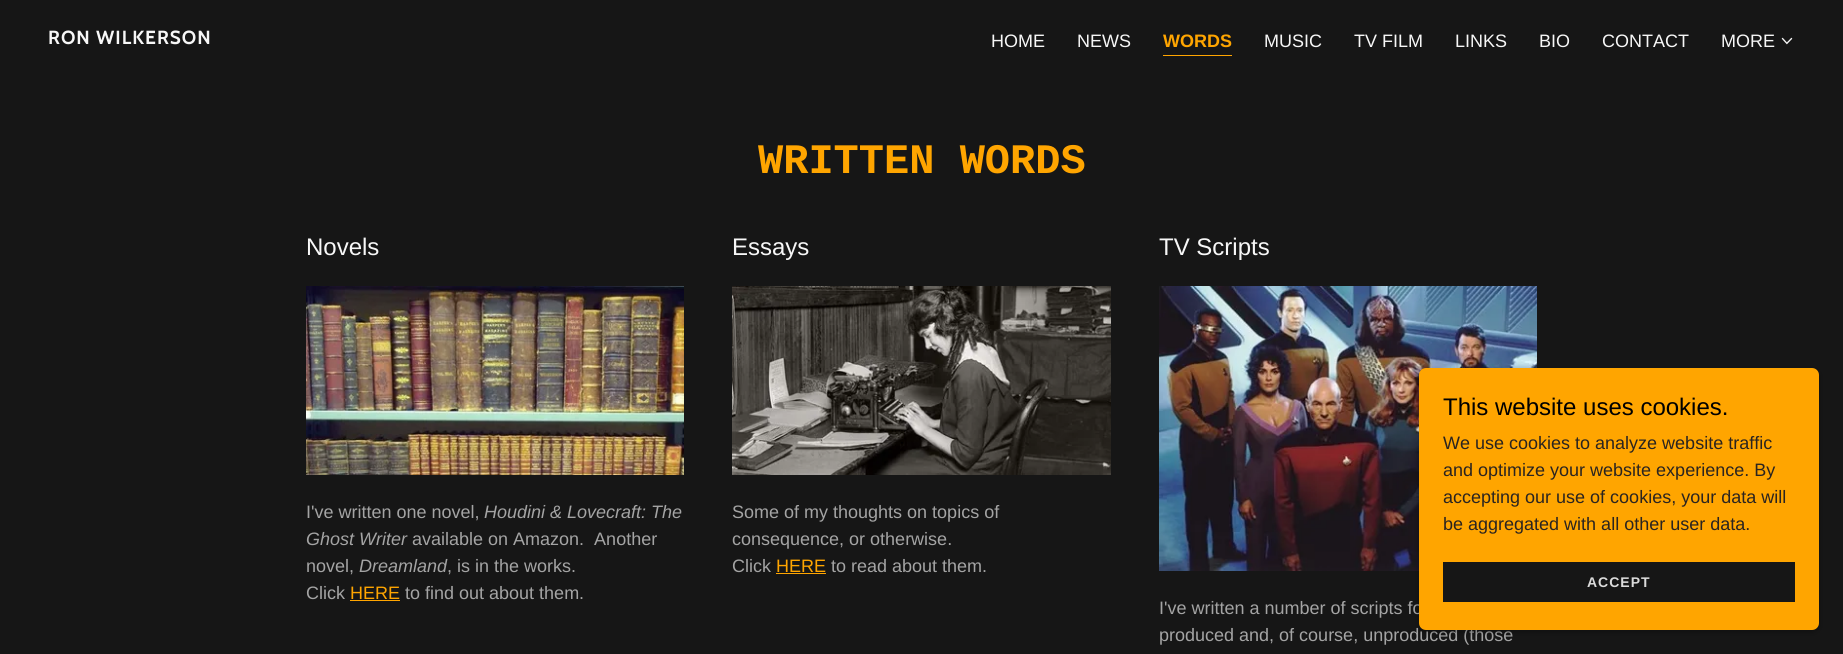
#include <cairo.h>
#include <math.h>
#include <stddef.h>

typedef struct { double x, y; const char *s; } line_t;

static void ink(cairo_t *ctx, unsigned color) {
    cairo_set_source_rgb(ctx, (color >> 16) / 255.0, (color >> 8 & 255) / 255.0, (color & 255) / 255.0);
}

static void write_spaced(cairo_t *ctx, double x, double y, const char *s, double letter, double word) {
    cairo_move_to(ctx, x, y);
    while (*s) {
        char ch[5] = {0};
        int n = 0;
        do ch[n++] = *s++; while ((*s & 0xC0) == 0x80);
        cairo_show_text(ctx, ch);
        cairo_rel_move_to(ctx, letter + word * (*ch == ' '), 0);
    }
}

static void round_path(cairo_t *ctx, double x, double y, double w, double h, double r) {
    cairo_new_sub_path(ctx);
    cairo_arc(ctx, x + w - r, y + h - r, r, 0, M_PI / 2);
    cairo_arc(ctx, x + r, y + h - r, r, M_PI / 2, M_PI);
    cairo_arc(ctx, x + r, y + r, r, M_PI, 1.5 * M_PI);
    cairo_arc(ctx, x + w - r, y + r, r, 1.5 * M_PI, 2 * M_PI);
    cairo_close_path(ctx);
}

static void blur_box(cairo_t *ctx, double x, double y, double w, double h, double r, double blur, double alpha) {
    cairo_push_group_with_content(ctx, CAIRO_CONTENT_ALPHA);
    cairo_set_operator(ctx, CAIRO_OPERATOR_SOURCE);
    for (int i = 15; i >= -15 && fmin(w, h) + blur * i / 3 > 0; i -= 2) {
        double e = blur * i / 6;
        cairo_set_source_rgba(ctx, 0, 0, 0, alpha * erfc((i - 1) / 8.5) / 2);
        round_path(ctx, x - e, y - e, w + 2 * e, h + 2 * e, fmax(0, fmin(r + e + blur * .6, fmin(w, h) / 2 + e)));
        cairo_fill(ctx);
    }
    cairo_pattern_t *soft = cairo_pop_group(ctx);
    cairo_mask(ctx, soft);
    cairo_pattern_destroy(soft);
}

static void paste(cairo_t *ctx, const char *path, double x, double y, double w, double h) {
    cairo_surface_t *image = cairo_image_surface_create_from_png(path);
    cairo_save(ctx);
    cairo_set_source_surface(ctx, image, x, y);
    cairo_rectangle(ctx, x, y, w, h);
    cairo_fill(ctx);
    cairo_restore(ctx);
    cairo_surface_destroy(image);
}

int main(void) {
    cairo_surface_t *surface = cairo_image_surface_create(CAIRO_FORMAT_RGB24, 1843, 654);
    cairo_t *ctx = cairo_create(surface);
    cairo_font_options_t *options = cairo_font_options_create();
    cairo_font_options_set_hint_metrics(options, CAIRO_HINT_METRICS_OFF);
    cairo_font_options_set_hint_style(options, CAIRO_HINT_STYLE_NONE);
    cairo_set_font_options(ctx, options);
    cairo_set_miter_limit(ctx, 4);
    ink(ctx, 0x161616);
    cairo_paint(ctx);
    cairo_select_font_face(ctx, "Cabin", CAIRO_FONT_SLANT_NORMAL, CAIRO_FONT_WEIGHT_BOLD);
    cairo_set_font_size(ctx, 19);
    ink(ctx, 0xF7F7F7);
    write_spaced(ctx, 48, 44, "RON WILKERSON", 1, 0);
    cairo_select_font_face(ctx, "Liberation Sans", CAIRO_FONT_SLANT_NORMAL, CAIRO_FONT_WEIGHT_NORMAL);
    cairo_set_font_size(ctx, 18);
    cairo_move_to(ctx, 991, 47);
    cairo_show_text(ctx, "HOME");
    cairo_move_to(ctx, 1077, 47);
    cairo_show_text(ctx, "NEWS");
    ink(ctx, 0xFFA500);
    cairo_rectangle(ctx, 1163, 55, 69, 1);
    cairo_fill(ctx);
    cairo_select_font_face(ctx, "Liberation Sans", CAIRO_FONT_SLANT_NORMAL, CAIRO_FONT_WEIGHT_BOLD);
    cairo_move_to(ctx, 1163, 47);
    cairo_show_text(ctx, "WORDS");
    cairo_select_font_face(ctx, "Liberation Sans", CAIRO_FONT_SLANT_NORMAL, CAIRO_FONT_WEIGHT_NORMAL);
    ink(ctx, 0xF7F7F7);
    {
        static const line_t items[] = {
            {1264, 47, "MUSIC"},
            {1354, 47, "TV FILM"},
            {1455, 47, "LINKS"},
            {1539, 47, "BIO"},
            {1602, 47, "CONTACT"},
            {1721, 47, "MORE"},
        };
        for (size_t i = 0; i < sizeof items / sizeof *items; i++) {
            cairo_move_to(ctx, items[i].x, items[i].y);
            cairo_show_text(ctx, items[i].s);
        }
    }
    paste(ctx, "media/1.png", 1781, 37, 12, 8);
    cairo_select_font_face(ctx, "Liberation Mono", CAIRO_FONT_SLANT_NORMAL, CAIRO_FONT_WEIGHT_BOLD);
    cairo_set_font_size(ctx, 42);
    ink(ctx, 0xFFA500);
    cairo_move_to(ctx, 758, 173);
    cairo_show_text(ctx, "WRITTEN WORDS");
    cairo_select_font_face(ctx, "Liberation Sans", CAIRO_FONT_SLANT_NORMAL, CAIRO_FONT_WEIGHT_NORMAL);
    cairo_set_font_size(ctx, 24);
    ink(ctx, 0xF7F7F7);
    cairo_move_to(ctx, 306, 255);
    cairo_show_text(ctx, "Novels");
    paste(ctx, "media/2.png", 306, 286, 378, 189);
    cairo_set_font_size(ctx, 18);
    ink(ctx, 0xA4A4A4);
    cairo_move_to(ctx, 306, 518);
    cairo_show_text(ctx, "I've written one novel,");
    cairo_select_font_face(ctx, "Liberation Sans", CAIRO_FONT_SLANT_ITALIC, CAIRO_FONT_WEIGHT_NORMAL);
    cairo_move_to(ctx, 484, 518);
    cairo_show_text(ctx, "Houdini & Lovecraft: The");
    cairo_move_to(ctx, 306, 545);
    cairo_show_text(ctx, "Ghost Writer");
    cairo_select_font_face(ctx, "Liberation Sans", CAIRO_FONT_SLANT_NORMAL, CAIRO_FONT_WEIGHT_NORMAL);
    cairo_move_to(ctx, 412, 545);
    cairo_show_text(ctx, "available on Amazon.  Another");
    cairo_move_to(ctx, 306, 572);
    cairo_show_text(ctx, "novel,");
    cairo_select_font_face(ctx, "Liberation Sans", CAIRO_FONT_SLANT_ITALIC, CAIRO_FONT_WEIGHT_NORMAL);
    cairo_move_to(ctx, 359, 572);
    cairo_show_text(ctx, "Dreamland");
    cairo_select_font_face(ctx, "Liberation Sans", CAIRO_FONT_SLANT_NORMAL, CAIRO_FONT_WEIGHT_NORMAL);
    cairo_move_to(ctx, 447, 572);
    cairo_show_text(ctx, ", is in the works.");
    cairo_move_to(ctx, 306, 599);
    cairo_show_text(ctx, "Click");
    ink(ctx, 0xFFA500);
    cairo_move_to(ctx, 350, 599);
    cairo_show_text(ctx, "HERE");
    cairo_rectangle(ctx, 350, 600, 50, 1);
    cairo_fill(ctx);
    ink(ctx, 0xA4A4A4);
    cairo_move_to(ctx, 405, 599);
    cairo_show_text(ctx, "to find out about them.");
    cairo_set_font_size(ctx, 24);
    ink(ctx, 0xF7F7F7);
    cairo_move_to(ctx, 732, 255);
    cairo_show_text(ctx, "Essays");
    paste(ctx, "media/3.png", 732, 286, 379, 189);
    cairo_set_font_size(ctx, 18);
    ink(ctx, 0xA4A4A4);
    {
        static const line_t items[] = {
            {732, 518, "Some of my thoughts on topics of"},
            {732, 545, "consequence, or otherwise."},
            {732, 572, "Click"},
        };
        for (size_t i = 0; i < sizeof items / sizeof *items; i++) {
            cairo_move_to(ctx, items[i].x, items[i].y);
            cairo_show_text(ctx, items[i].s);
        }
    }
    ink(ctx, 0xFFA500);
    cairo_move_to(ctx, 776, 572);
    cairo_show_text(ctx, "HERE");
    cairo_rectangle(ctx, 776, 573, 50, 1);
    cairo_fill(ctx);
    ink(ctx, 0xA4A4A4);
    cairo_move_to(ctx, 831, 572);
    cairo_show_text(ctx, "to read about them.");
    cairo_set_font_size(ctx, 24);
    ink(ctx, 0xF7F7F7);
    cairo_move_to(ctx, 1159, 255);
    cairo_show_text(ctx, "TV Scripts");
    paste(ctx, "media/4.png", 1159, 286, 378, 285);
    cairo_set_font_size(ctx, 18);
    ink(ctx, 0xA4A4A4);
    cairo_move_to(ctx, 1159, 614);
    cairo_show_text(ctx, "I've written a number of scripts fo");
    cairo_move_to(ctx, 1159, 641);
    cairo_show_text(ctx, "produced and, of course, unproduced (those");
    ink(ctx, 0x000000);
    blur_box(ctx, 1419, 370, 400, 262, 7, 3, 0.3);
    ink(ctx, 0xFFA500);
    round_path(ctx, 1419, 368, 400, 262, 7);
    cairo_fill(ctx);
    cairo_set_font_size(ctx, 24);
    ink(ctx, 0x000000);
    cairo_move_to(ctx, 1443, 415);
    cairo_show_text(ctx, "This website uses cookies.");
    cairo_set_font_size(ctx, 18);
    ink(ctx, 0x2A2420);
    {
        static const line_t items[] = {
            {1443, 449, "We use cookies to analyze website traffic"},
            {1443, 476, "and optimize your website experience. By"},
            {1443, 503, "accepting our use of cookies, your data will"},
            {1443, 530, "be aggregated with all other user data."},
        };
        for (size_t i = 0; i < sizeof items / sizeof *items; i++) {
            cairo_move_to(ctx, items[i].x, items[i].y);
            cairo_show_text(ctx, items[i].s);
        }
    }
    ink(ctx, 0x161616);
    cairo_rectangle(ctx, 1443, 562, 352, 40);
    cairo_fill(ctx);
    cairo_select_font_face(ctx, "Liberation Sans", CAIRO_FONT_SLANT_NORMAL, CAIRO_FONT_WEIGHT_BOLD);
    cairo_set_font_size(ctx, 14);
    ink(ctx, 0xDBDBDB);
    write_spaced(ctx, 1587, 587, "ACCEPT", 1, 0);
    cairo_surface_write_to_png(surface, "image.png");
    cairo_font_options_destroy(options);
    cairo_destroy(ctx);
    cairo_surface_destroy(surface);
    return 0;
}
